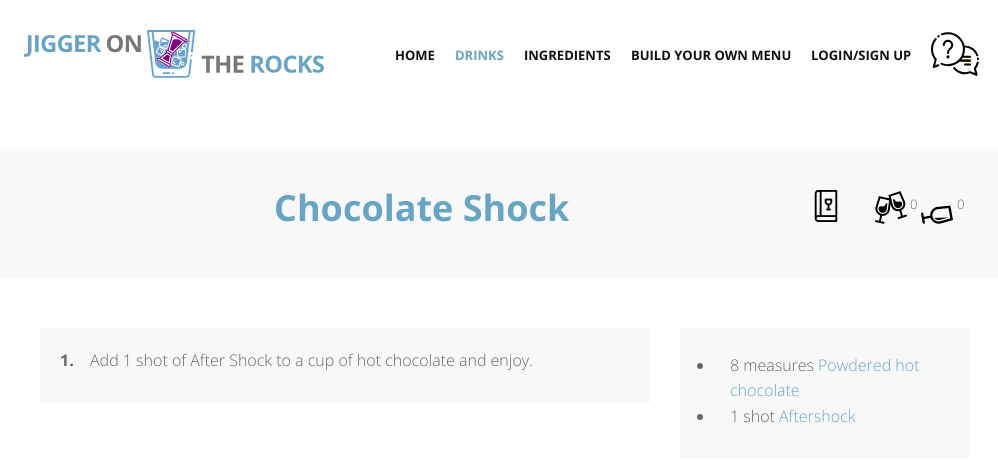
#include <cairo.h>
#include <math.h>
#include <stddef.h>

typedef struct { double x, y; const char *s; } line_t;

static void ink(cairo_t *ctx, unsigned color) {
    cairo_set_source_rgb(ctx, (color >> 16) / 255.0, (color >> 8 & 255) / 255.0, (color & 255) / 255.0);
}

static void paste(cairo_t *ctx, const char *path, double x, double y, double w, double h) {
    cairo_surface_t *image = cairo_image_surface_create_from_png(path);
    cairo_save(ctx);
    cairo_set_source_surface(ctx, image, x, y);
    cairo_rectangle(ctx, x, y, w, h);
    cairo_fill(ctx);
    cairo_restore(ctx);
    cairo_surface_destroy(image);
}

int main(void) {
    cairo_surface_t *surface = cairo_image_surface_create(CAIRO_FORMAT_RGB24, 998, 460);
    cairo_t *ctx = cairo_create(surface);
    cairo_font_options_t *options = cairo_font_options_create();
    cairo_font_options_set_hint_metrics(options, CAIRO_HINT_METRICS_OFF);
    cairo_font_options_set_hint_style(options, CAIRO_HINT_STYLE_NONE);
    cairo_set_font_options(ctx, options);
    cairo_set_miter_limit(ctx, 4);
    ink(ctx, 0xF9F9F9);
    cairo_paint(ctx);
    ink(ctx, 0xFFFFFF);
    cairo_rectangle(ctx, 0, 0, 998, 148);
    cairo_fill(ctx);
    paste(ctx, "media/1.png", 24, 30, 300, 48);
    cairo_select_font_face(ctx, "Open Sans", CAIRO_FONT_SLANT_NORMAL, CAIRO_FONT_WEIGHT_BOLD);
    cairo_set_font_size(ctx, 13);
    ink(ctx, 0x111111);
    cairo_move_to(ctx, 395, 60);
    cairo_show_text(ctx, "HOME");
    ink(ctx, 0x68A4C4);
    cairo_move_to(ctx, 455, 60);
    cairo_show_text(ctx, "DRINKS");
    ink(ctx, 0x111111);
    {
        static const line_t items[] = {
            {524, 60, "INGREDIENTS"},
            {631, 60, "BUILD YOUR OWN MENU"},
            {811, 60, "LOGIN/SIGN UP"},
        };
        for (size_t i = 0; i < sizeof items / sizeof *items; i++) {
            cairo_move_to(ctx, items[i].x, items[i].y);
            cairo_show_text(ctx, items[i].s);
        }
    }
    paste(ctx, "media/2.png", 931, 32, 48, 44);
    cairo_set_font_size(ctx, 36);
    ink(ctx, 0x68A4C4);
    cairo_move_to(ctx, 274, 221);
    cairo_show_text(ctx, "Chocolate Shock");
    paste(ctx, "media/3.png", 814, 190, 24, 32);
    paste(ctx, "media/4.png", 875, 191, 32, 33);
    cairo_select_font_face(ctx, "Open Sans Light", CAIRO_FONT_SLANT_NORMAL, CAIRO_FONT_WEIGHT_NORMAL);
    cairo_set_font_size(ctx, 13);
    ink(ctx, 0x656565);
    cairo_move_to(ctx, 910, 209);
    cairo_show_text(ctx, "0");
    paste(ctx, "media/5.png", 921, 205, 32, 19);
    cairo_move_to(ctx, 957, 209);
    cairo_show_text(ctx, "0");
    ink(ctx, 0xFFFFFF);
    cairo_rectangle(ctx, 0, 278, 998, 182);
    cairo_fill(ctx);
    ink(ctx, 0xF8F8F8);
    cairo_rectangle(ctx, 40, 328, 610, 75);
    cairo_fill(ctx);
    cairo_select_font_face(ctx, "Open Sans", CAIRO_FONT_SLANT_NORMAL, CAIRO_FONT_WEIGHT_BOLD);
    cairo_set_font_size(ctx, 16);
    ink(ctx, 0x656565);
    cairo_move_to(ctx, 60, 366);
    cairo_show_text(ctx, "1.");
    cairo_select_font_face(ctx, "Open Sans Light", CAIRO_FONT_SLANT_NORMAL, CAIRO_FONT_WEIGHT_NORMAL);
    cairo_move_to(ctx, 90, 366);
    cairo_show_text(ctx, "Add 1 shot of After Shock to a cup of hot chocolate and enjoy.");
    ink(ctx, 0xF8F8F8);
    cairo_rectangle(ctx, 680, 328, 290, 131);
    cairo_fill(ctx);
    ink(ctx, 0x656565);
    cairo_arc(ctx, 700, 366, 3, 0, 2 * M_PI);
    cairo_fill(ctx);
    cairo_move_to(ctx, 730, 371);
    cairo_show_text(ctx, "8 measures");
    ink(ctx, 0x68A4C4);
    cairo_move_to(ctx, 818, 371);
    cairo_show_text(ctx, "Powdered hot");
    cairo_move_to(ctx, 730, 396);
    cairo_show_text(ctx, "chocolate");
    ink(ctx, 0x656565);
    cairo_new_path(ctx);
    cairo_arc(ctx, 700, 417, 3, 0, 2 * M_PI);
    cairo_fill(ctx);
    cairo_move_to(ctx, 730, 422);
    cairo_show_text(ctx, "1 shot");
    ink(ctx, 0x68A4C4);
    cairo_move_to(ctx, 779, 422);
    cairo_show_text(ctx, "Aftershock");
    cairo_surface_write_to_png(surface, "image.png");
    cairo_font_options_destroy(options);
    cairo_destroy(ctx);
    cairo_surface_destroy(surface);
    return 0;
}
